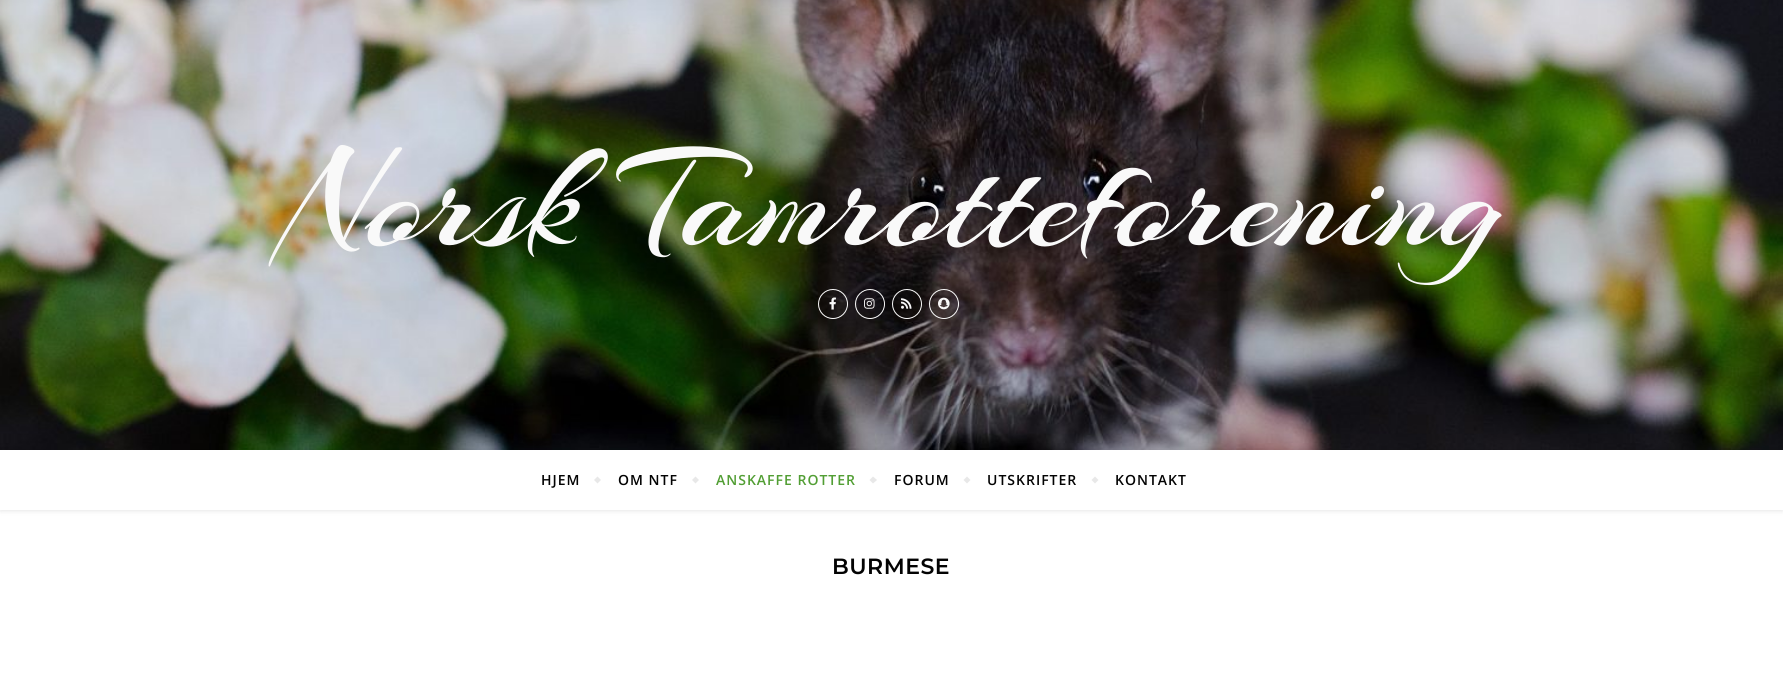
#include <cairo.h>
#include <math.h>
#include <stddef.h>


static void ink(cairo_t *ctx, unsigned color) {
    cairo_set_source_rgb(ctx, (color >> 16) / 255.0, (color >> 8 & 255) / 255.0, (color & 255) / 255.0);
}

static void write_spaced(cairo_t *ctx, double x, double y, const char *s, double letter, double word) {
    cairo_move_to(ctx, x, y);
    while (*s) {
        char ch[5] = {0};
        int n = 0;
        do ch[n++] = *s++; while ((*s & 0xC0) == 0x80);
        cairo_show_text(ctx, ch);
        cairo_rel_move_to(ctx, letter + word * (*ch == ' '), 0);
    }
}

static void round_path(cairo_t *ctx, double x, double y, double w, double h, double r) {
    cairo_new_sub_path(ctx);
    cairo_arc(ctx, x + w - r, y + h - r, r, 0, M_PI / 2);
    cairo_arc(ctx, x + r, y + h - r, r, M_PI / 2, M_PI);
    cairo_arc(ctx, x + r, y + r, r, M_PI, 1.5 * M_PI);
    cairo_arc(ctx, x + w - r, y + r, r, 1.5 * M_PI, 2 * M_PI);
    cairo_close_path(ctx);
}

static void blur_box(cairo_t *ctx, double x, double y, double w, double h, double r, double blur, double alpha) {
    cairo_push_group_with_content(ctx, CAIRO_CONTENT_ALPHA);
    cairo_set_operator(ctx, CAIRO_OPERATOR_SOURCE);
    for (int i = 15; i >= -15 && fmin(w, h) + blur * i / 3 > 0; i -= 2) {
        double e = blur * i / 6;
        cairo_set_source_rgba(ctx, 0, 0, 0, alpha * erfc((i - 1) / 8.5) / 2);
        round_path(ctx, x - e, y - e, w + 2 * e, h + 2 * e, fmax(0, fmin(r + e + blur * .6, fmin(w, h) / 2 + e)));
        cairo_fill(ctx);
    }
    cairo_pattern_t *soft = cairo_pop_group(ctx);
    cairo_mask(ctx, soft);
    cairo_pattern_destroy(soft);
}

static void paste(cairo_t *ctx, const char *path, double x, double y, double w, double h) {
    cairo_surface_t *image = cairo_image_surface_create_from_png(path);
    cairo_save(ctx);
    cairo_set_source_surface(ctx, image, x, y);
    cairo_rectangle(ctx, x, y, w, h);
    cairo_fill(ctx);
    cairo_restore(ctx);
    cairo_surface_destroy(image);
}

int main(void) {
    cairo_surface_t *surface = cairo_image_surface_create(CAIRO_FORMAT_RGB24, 1783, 679);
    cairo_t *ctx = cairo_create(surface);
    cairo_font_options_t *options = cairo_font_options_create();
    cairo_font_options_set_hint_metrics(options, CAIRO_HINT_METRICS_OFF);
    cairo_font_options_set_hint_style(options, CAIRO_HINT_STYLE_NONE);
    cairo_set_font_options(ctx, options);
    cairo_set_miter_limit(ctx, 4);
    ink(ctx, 0xFFFFFF);
    cairo_paint(ctx);
    paste(ctx, "media/1.png", 0, 0, 1783, 450);
    cairo_select_font_face(ctx, "Arizonia", CAIRO_FONT_SLANT_NORMAL, CAIRO_FONT_WEIGHT_NORMAL);
    cairo_set_font_size(ctx, 150);
    ink(ctx, 0xF9F9F9);
    cairo_move_to(ctx, 280, 245);
    cairo_show_text(ctx, "Norsk Tamrotteforening");
    cairo_new_path(ctx);
    cairo_arc(ctx, 833, 304, 14.5, 0, 2 * M_PI);
    cairo_set_line_width(ctx, 1);
    cairo_stroke(ctx);
    paste(ctx, "media/2.png", 829, 297, 7, 13);
    cairo_arc(ctx, 870, 304, 14.5, 0, 2 * M_PI);
    cairo_stroke(ctx);
    paste(ctx, "media/3.png", 864, 298, 11, 11);
    cairo_arc(ctx, 907, 304, 14.5, 0, 2 * M_PI);
    cairo_stroke(ctx);
    paste(ctx, "media/4.png", 901, 298, 11, 11);
    cairo_arc(ctx, 944, 304, 14.5, 0, 2 * M_PI);
    cairo_stroke(ctx);
    paste(ctx, "media/5.png", 938, 297, 12, 13);
    cairo_save(ctx);
    cairo_set_fill_rule(ctx, CAIRO_FILL_RULE_EVEN_ODD);
    cairo_new_path(ctx);
    cairo_move_to(ctx, 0, 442);
    cairo_line_to(ctx, 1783, 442);
    cairo_line_to(ctx, 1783, 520);
    cairo_line_to(ctx, 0, 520);
    cairo_close_path(ctx);
    cairo_move_to(ctx, 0, 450);
    cairo_line_to(ctx, 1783, 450);
    cairo_line_to(ctx, 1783, 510);
    cairo_line_to(ctx, 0, 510);
    cairo_close_path(ctx);
    cairo_clip(ctx);
    ink(ctx, 0x000000);
    blur_box(ctx, 0, 451, 1783, 60, 0, 2.5, 0.1);
    cairo_restore(ctx);
    cairo_select_font_face(ctx, "Open Sans SemiBold", CAIRO_FONT_SLANT_NORMAL, CAIRO_FONT_WEIGHT_NORMAL);
    cairo_set_font_size(ctx, 14);
    ink(ctx, 0x030303);
    write_spaced(ctx, 541, 485, "HJEM", 1, 0);
    ink(ctx, 0xE8E8E8);
    cairo_new_path(ctx);
    cairo_move_to(ctx, 594, 480);
    cairo_line_to(ctx, 597.5, 476.5);
    cairo_line_to(ctx, 601, 480);
    cairo_line_to(ctx, 597.5, 483.5);
    cairo_close_path(ctx);
    cairo_fill(ctx);
    ink(ctx, 0x030303);
    write_spaced(ctx, 618, 485, "OM NTF", 1, 0);
    ink(ctx, 0xE8E8E8);
    cairo_new_path(ctx);
    cairo_move_to(ctx, 692, 480);
    cairo_line_to(ctx, 695.5, 476.5);
    cairo_line_to(ctx, 699, 480);
    cairo_line_to(ctx, 695.5, 483.5);
    cairo_close_path(ctx);
    cairo_fill(ctx);
    ink(ctx, 0x529E34);
    write_spaced(ctx, 716, 485, "ANSKAFFE ROTTER", 1, 0);
    ink(ctx, 0xE8E8E8);
    cairo_new_path(ctx);
    cairo_move_to(ctx, 869.5, 480);
    cairo_line_to(ctx, 873, 476.5);
    cairo_line_to(ctx, 877, 480);
    cairo_line_to(ctx, 873, 483.5);
    cairo_close_path(ctx);
    cairo_fill(ctx);
    ink(ctx, 0x030303);
    write_spaced(ctx, 894, 485, "FORUM", 1, 0);
    ink(ctx, 0xE8E8E8);
    cairo_new_path(ctx);
    cairo_move_to(ctx, 963.5, 480);
    cairo_line_to(ctx, 967, 476.5);
    cairo_line_to(ctx, 970.5, 480);
    cairo_line_to(ctx, 967, 483.5);
    cairo_close_path(ctx);
    cairo_fill(ctx);
    ink(ctx, 0x030303);
    write_spaced(ctx, 987, 485, "UTSKRIFTER", 1, 0);
    ink(ctx, 0xE8E8E8);
    cairo_new_path(ctx);
    cairo_move_to(ctx, 1091.5, 480);
    cairo_line_to(ctx, 1095, 476.5);
    cairo_line_to(ctx, 1098.5, 480);
    cairo_line_to(ctx, 1095, 483.5);
    cairo_close_path(ctx);
    cairo_fill(ctx);
    ink(ctx, 0x030303);
    write_spaced(ctx, 1115, 485, "KONTAKT", 1, 0);
    cairo_select_font_face(ctx, "Montserrat SemiBold", CAIRO_FONT_SLANT_NORMAL, CAIRO_FONT_WEIGHT_NORMAL);
    cairo_set_font_size(ctx, 22);
    write_spaced(ctx, 832, 574, "BURMESE", 0.5, 0);
    cairo_surface_write_to_png(surface, "image.png");
    cairo_font_options_destroy(options);
    cairo_destroy(ctx);
    cairo_surface_destroy(surface);
    return 0;
}
